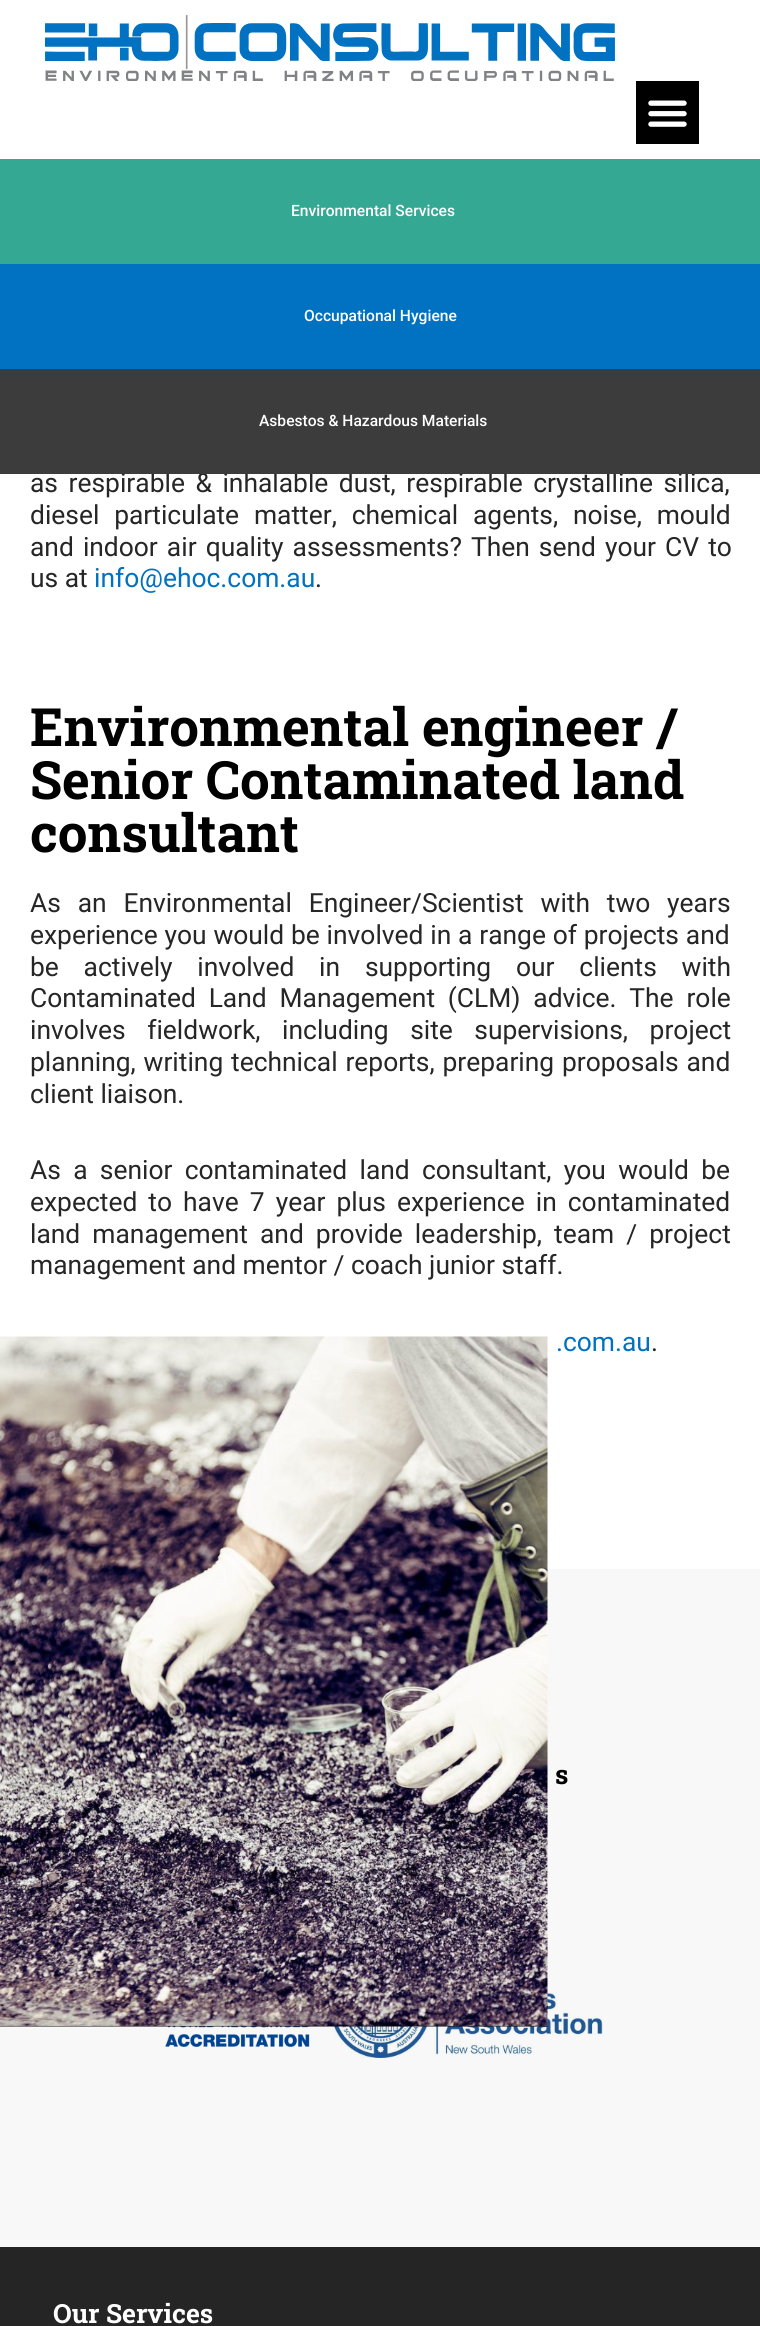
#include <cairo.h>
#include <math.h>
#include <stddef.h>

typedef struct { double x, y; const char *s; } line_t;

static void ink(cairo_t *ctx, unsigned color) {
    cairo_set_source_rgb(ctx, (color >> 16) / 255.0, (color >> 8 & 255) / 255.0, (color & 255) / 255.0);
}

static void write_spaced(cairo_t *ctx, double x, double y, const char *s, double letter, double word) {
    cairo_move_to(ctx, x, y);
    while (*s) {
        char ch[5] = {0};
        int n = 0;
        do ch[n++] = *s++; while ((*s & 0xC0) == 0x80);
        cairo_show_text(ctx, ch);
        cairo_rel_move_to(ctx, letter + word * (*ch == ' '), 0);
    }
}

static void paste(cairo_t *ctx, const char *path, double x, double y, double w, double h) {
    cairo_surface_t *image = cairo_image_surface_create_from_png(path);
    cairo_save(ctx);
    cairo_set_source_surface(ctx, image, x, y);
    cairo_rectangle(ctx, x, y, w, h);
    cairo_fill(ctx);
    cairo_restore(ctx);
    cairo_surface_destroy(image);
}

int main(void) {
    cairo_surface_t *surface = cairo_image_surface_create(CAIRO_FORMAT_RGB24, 760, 2326);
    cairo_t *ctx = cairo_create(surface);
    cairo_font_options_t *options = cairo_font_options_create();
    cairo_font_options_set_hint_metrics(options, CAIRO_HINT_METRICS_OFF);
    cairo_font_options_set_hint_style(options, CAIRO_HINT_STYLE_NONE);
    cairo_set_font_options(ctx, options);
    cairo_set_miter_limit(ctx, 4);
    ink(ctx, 0xFFFFFF);
    cairo_paint(ctx);
    paste(ctx, "media/1.png", 45, 15, 570, 66);
    ink(ctx, 0x000000);
    cairo_rectangle(ctx, 636, 81, 63, 63);
    cairo_fill(ctx);
    paste(ctx, "media/2.png", 648, 100, 39, 27);
    ink(ctx, 0x35A893);
    cairo_rectangle(ctx, 0, 159, 760, 105);
    cairo_fill(ctx);
    cairo_select_font_face(ctx, "Roboto Medium", CAIRO_FONT_SLANT_NORMAL, CAIRO_FONT_WEIGHT_NORMAL);
    cairo_set_font_size(ctx, 15.6);
    ink(ctx, 0xFFFFFF);
    cairo_move_to(ctx, 291, 216);
    cairo_show_text(ctx, "Environmental Services");
    ink(ctx, 0x0072C1);
    cairo_rectangle(ctx, 0, 264, 760, 105);
    cairo_fill(ctx);
    ink(ctx, 0xFFFFFF);
    cairo_move_to(ctx, 304, 321);
    cairo_show_text(ctx, "Occupational Hygiene");
    cairo_select_font_face(ctx, "Roboto", CAIRO_FONT_SLANT_NORMAL, CAIRO_FONT_WEIGHT_NORMAL);
    cairo_set_font_size(ctx, 26.4);
    ink(ctx, 0x272626);
    write_spaced(ctx, 30, 492, "as respirable & inhalable dust, respirable crystalline silica,", 0, 4);
    ink(ctx, 0x3C3C3C);
    cairo_rectangle(ctx, 0, 369, 760, 105);
    cairo_fill(ctx);
    cairo_select_font_face(ctx, "Roboto Medium", CAIRO_FONT_SLANT_NORMAL, CAIRO_FONT_WEIGHT_NORMAL);
    cairo_set_font_size(ctx, 15.6);
    ink(ctx, 0xFFFFFF);
    cairo_move_to(ctx, 259, 426);
    cairo_show_text(ctx, "Asbestos & Hazardous Materials");
    cairo_select_font_face(ctx, "Roboto", CAIRO_FONT_SLANT_NORMAL, CAIRO_FONT_WEIGHT_NORMAL);
    cairo_set_font_size(ctx, 26.4);
    ink(ctx, 0x272626);
    write_spaced(ctx, 30, 524, "diesel particulate matter, chemical agents, noise, mould", 0, 8.25);
    write_spaced(ctx, 30, 556, "and indoor air quality assessments? Then send your CV to", 0, 2.5);
    cairo_move_to(ctx, 30, 587);
    cairo_show_text(ctx, "us at");
    ink(ctx, 0x0072C1);
    cairo_move_to(ctx, 94, 587);
    cairo_show_text(ctx, "info@ehoc.com.au");
    ink(ctx, 0x272626);
    cairo_move_to(ctx, 315, 587);
    cairo_show_text(ctx, ".");
    cairo_select_font_face(ctx, "Roboto Slab", CAIRO_FONT_SLANT_NORMAL, CAIRO_FONT_WEIGHT_BOLD);
    cairo_set_font_size(ctx, 52.75);
    ink(ctx, 0x000000);
    {
        static const line_t items[] = {
            {30, 746, "Environmental engineer /"},
            {30, 799, "Senior Contaminated land"},
            {30, 852, "consultant"},
        };
        for (size_t i = 0; i < sizeof items / sizeof *items; i++) {
            cairo_move_to(ctx, items[i].x, items[i].y);
            cairo_show_text(ctx, items[i].s);
        }
    }
    cairo_select_font_face(ctx, "Roboto", CAIRO_FONT_SLANT_NORMAL, CAIRO_FONT_WEIGHT_NORMAL);
    cairo_set_font_size(ctx, 26.4);
    ink(ctx, 0x272626);
    write_spaced(ctx, 30, 912, "As an Environmental Engineer/Scientist with two years", 0, 10.25);
    write_spaced(ctx, 30, 944, "experience you would be involved in a range of projects and", 0, 0.25);
    write_spaced(ctx, 30, 976, "be actively involved in supporting our clients with", 0, 18.25);
    write_spaced(ctx, 30, 1007, "Contaminated Land Management (CLM) advice. The role", 0, 6.25);
    write_spaced(ctx, 30, 1039, "involves fieldwork, including site supervisions, project", 0, 15);
    write_spaced(ctx, 30, 1071, "planning, writing technical reports, preparing proposals and", 0, 1.25);
    cairo_move_to(ctx, 30, 1103);
    cairo_show_text(ctx, "client liaison.");
    write_spaced(ctx, 30, 1179, "As a senior contaminated land consultant, you would be", 0, 5.75);
    write_spaced(ctx, 30, 1211, "expected to have 7 year plus experience in contaminated", 0, 4.5);
    write_spaced(ctx, 30, 1243, "land management and provide leadership, team / project", 0, 5.5);
    cairo_move_to(ctx, 30, 1274);
    cairo_show_text(ctx, "management and mentor / coach junior staff.");
    ink(ctx, 0x0072C1);
    cairo_move_to(ctx, 556, 1351);
    cairo_show_text(ctx, ".com.au");
    ink(ctx, 0x272626);
    cairo_move_to(ctx, 651, 1351);
    cairo_show_text(ctx, ".");
    ink(ctx, 0xF8F8F8);
    cairo_rectangle(ctx, 0, 1569, 760, 678);
    cairo_fill(ctx);
    paste(ctx, "media/4.png", 165, 1824, 438, 234);
    paste(ctx, "media/3.png", 0, 1336, 548, 691);
    cairo_select_font_face(ctx, "Roboto Slab", CAIRO_FONT_SLANT_NORMAL, CAIRO_FONT_WEIGHT_BOLD);
    ink(ctx, 0x000000);
    cairo_move_to(ctx, 555, 1784);
    cairo_show_text(ctx, "s");
    ink(ctx, 0x252525);
    cairo_rectangle(ctx, 0, 2247, 760, 79);
    cairo_fill(ctx);
    ink(ctx, 0xFFFFFF);
    cairo_move_to(ctx, 53, 2323);
    cairo_show_text(ctx, "Our Services");
    cairo_surface_write_to_png(surface, "image.png");
    cairo_font_options_destroy(options);
    cairo_destroy(ctx);
    cairo_surface_destroy(surface);
    return 0;
}
